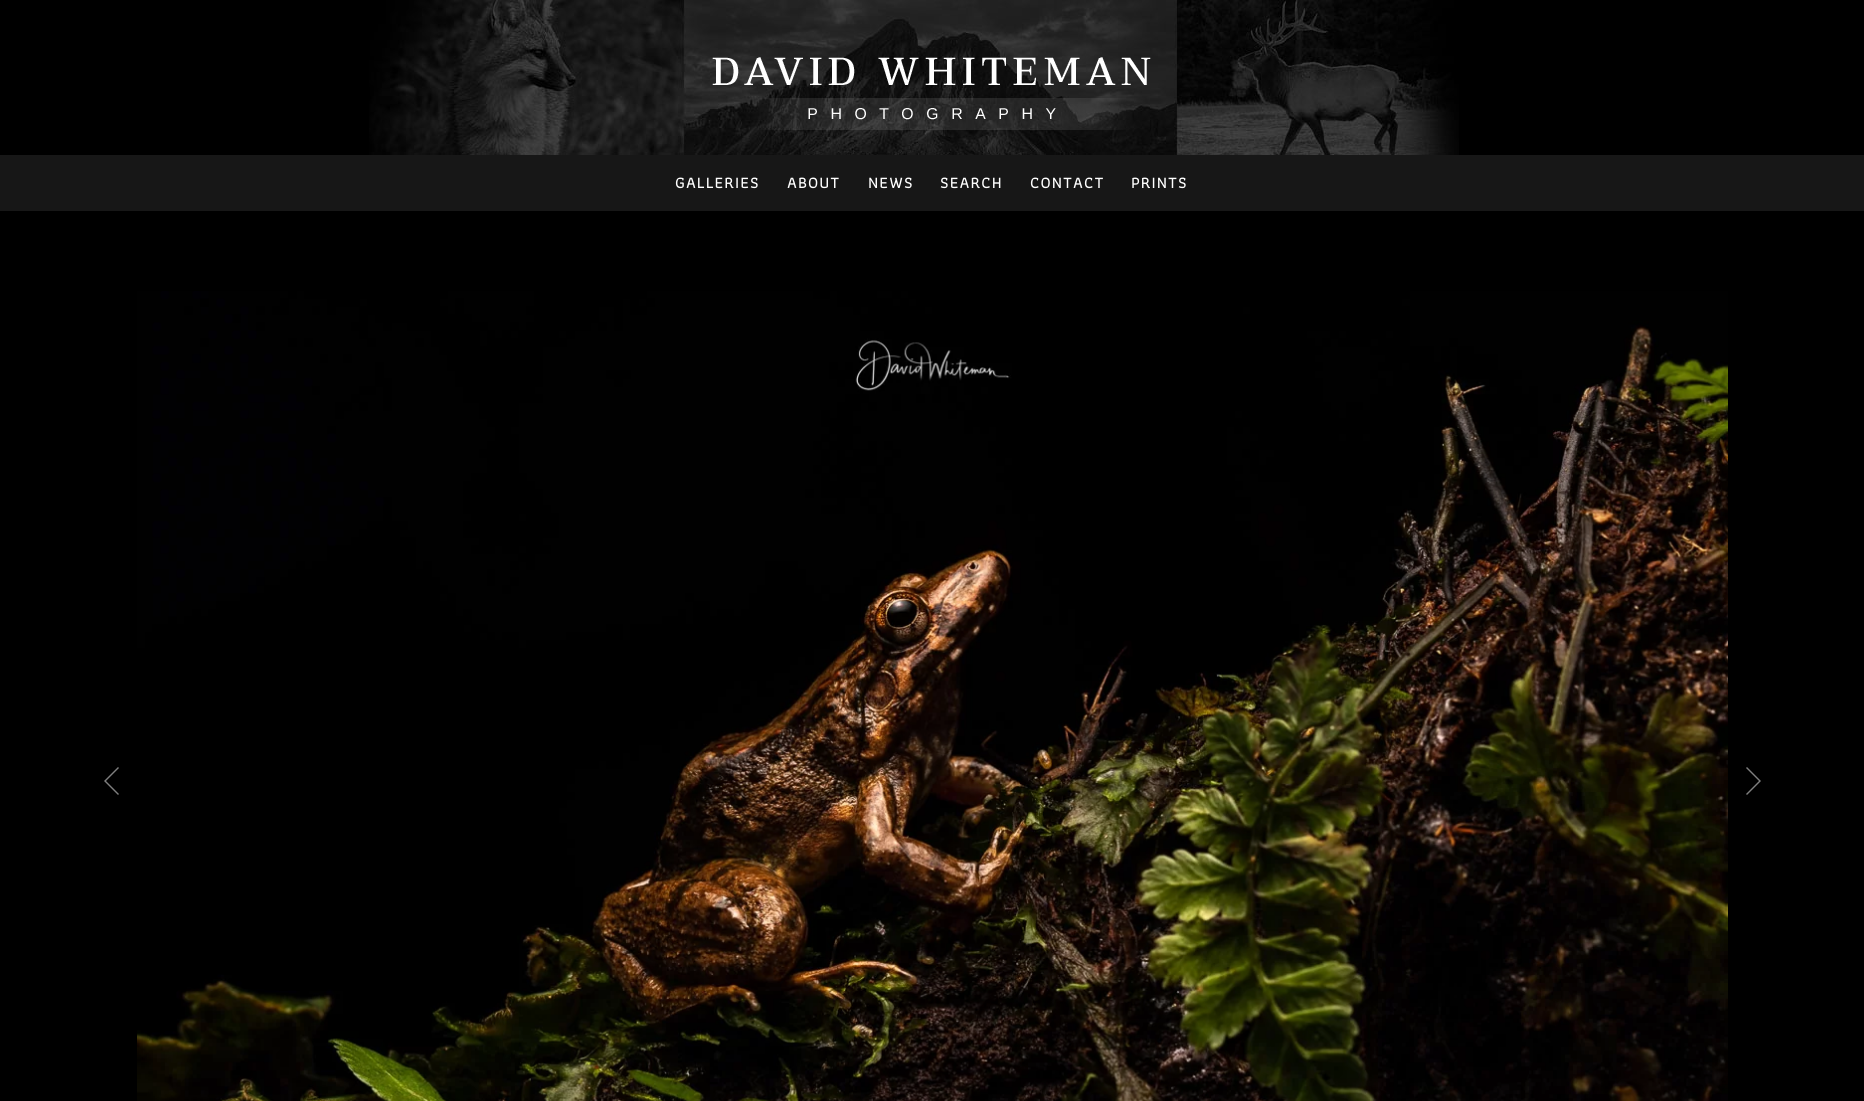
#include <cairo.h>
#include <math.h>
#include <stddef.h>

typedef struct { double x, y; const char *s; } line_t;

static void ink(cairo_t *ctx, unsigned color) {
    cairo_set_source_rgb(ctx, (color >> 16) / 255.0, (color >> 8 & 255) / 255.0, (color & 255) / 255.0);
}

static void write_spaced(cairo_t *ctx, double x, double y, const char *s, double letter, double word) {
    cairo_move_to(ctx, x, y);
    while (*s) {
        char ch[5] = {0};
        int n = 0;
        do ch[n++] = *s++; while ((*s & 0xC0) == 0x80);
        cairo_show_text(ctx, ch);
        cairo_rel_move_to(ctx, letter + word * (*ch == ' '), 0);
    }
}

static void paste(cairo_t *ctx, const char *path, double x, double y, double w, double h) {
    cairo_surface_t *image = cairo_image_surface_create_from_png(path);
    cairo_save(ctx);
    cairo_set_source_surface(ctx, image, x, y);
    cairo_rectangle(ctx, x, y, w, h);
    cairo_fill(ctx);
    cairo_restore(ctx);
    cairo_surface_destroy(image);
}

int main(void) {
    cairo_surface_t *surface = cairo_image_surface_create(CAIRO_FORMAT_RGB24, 1864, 1101);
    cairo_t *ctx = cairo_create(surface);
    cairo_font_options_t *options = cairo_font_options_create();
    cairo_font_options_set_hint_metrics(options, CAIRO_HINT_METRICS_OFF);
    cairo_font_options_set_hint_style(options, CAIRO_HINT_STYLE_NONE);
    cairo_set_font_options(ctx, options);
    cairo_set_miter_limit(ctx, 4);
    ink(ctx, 0x000000);
    cairo_paint(ctx);
    paste(ctx, "media/1.png", 369, 0, 1090, 155);
    paste(ctx, "media/2.png", 712, 57, 439, 73);
    ink(ctx, 0x171717);
    cairo_rectangle(ctx, 0, 155, 1864, 56);
    cairo_fill(ctx);
    cairo_select_font_face(ctx, "Athiti", CAIRO_FONT_SLANT_NORMAL, CAIRO_FONT_WEIGHT_BOLD);
    cairo_set_font_size(ctx, 16);
    ink(ctx, 0xFFFFFF);
    {
        static const line_t items[] = {
            {675, 188, "GALLERIES"},
            {787, 188, "ABOUT"},
            {868, 188, "NEWS"},
            {940, 188, "SEARCH"},
            {1030, 188, "CONTACT"},
            {1131, 188, "PRINTS"},
        };
        for (size_t i = 0; i < sizeof items / sizeof *items; i++) {
            write_spaced(ctx, items[i].x, items[i].y, items[i].s, 1.5, 0);
        }
    }
    paste(ctx, "media/3.png", 104, 767, 15, 28);
    paste(ctx, "media/4.png", 137, 291, 1591, 810);
    paste(ctx, "media/5.png", 1746, 767, 15, 28);
    cairo_surface_write_to_png(surface, "image.png");
    cairo_font_options_destroy(options);
    cairo_destroy(ctx);
    cairo_surface_destroy(surface);
    return 0;
}
